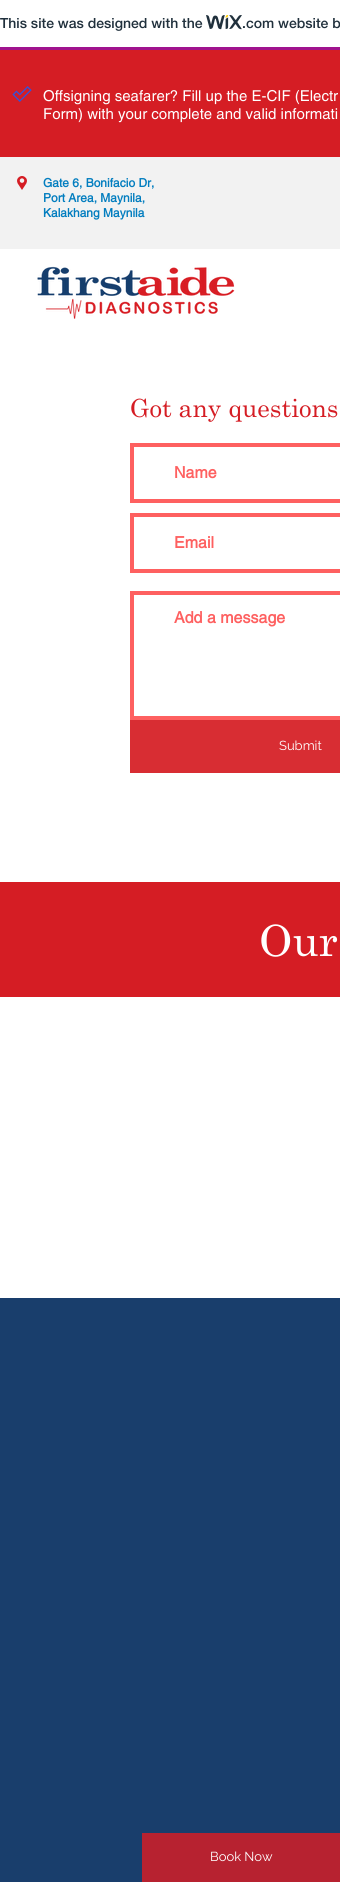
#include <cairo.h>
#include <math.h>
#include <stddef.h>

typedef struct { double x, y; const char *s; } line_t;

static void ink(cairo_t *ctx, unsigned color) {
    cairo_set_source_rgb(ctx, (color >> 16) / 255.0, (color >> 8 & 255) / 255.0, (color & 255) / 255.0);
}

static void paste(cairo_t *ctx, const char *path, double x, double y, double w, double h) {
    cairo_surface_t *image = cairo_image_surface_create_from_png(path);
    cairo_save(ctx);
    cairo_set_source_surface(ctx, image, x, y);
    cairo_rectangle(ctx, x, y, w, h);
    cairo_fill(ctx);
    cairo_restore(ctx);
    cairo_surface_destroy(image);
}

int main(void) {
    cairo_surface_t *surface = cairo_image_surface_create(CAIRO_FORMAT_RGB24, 340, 1882);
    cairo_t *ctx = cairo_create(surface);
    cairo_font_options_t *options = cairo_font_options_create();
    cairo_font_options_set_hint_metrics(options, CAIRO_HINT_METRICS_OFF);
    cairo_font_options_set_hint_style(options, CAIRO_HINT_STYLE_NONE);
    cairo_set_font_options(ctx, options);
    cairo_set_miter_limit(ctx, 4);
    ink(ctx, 0xFFFFFF);
    cairo_paint(ctx);
    ink(ctx, 0xA0138E);
    cairo_rectangle(ctx, 0, 47, 340, 3);
    cairo_fill(ctx);
    cairo_select_font_face(ctx, "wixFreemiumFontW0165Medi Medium", CAIRO_FONT_SLANT_NORMAL, CAIRO_FONT_WEIGHT_NORMAL);
    cairo_set_font_size(ctx, 14);
    ink(ctx, 0x20303C);
    cairo_move_to(ctx, 0, 28);
    cairo_show_text(ctx, "This site was designed with the");
    paste(ctx, "media/1.png", 206, 15, 36, 15);
    cairo_move_to(ctx, 242, 28);
    cairo_show_text(ctx, ".com website b");
    ink(ctx, 0xD51D24);
    cairo_rectangle(ctx, 0, 50, 340, 107);
    cairo_fill(ctx);
    paste(ctx, "media/2.png", 12, 86, 20, 16);
    cairo_select_font_face(ctx, "helvetica", CAIRO_FONT_SLANT_NORMAL, CAIRO_FONT_WEIGHT_NORMAL);
    cairo_set_font_size(ctx, 15);
    ink(ctx, 0xFFFFFF);
    cairo_move_to(ctx, 43, 101);
    cairo_show_text(ctx, "Offsigning seafarer? Fill up the E-CIF (Electr");
    cairo_move_to(ctx, 43, 119);
    cairo_show_text(ctx, "Form) with your complete and valid informati");
    ink(ctx, 0xF2F2F2);
    cairo_rectangle(ctx, 0, 157, 340, 92);
    cairo_fill(ctx);
    paste(ctx, "media/3.png", 17, 176, 10, 14);
    cairo_select_font_face(ctx, "helvetica", CAIRO_FONT_SLANT_NORMAL, CAIRO_FONT_WEIGHT_BOLD);
    cairo_set_font_size(ctx, 12);
    ink(ctx, 0x027DBF);
    {
        static const line_t items[] = {
            {43, 187, "Gate 6, Bonifacio Dr,"},
            {43, 202, "Port Area, Maynila,"},
            {43, 217, "Kalakhang Maynila"},
        };
        for (size_t i = 0; i < sizeof items / sizeof *items; i++) {
            cairo_move_to(ctx, items[i].x, items[i].y);
            cairo_show_text(ctx, items[i].s);
        }
    }
    paste(ctx, "media/4.png", 37, 266, 198, 53);
    cairo_select_font_face(ctx, "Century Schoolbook", CAIRO_FONT_SLANT_NORMAL, CAIRO_FONT_WEIGHT_NORMAL);
    cairo_set_font_size(ctx, 25);
    ink(ctx, 0xD51D24);
    cairo_move_to(ctx, 130, 417);
    cairo_show_text(ctx, "Got any questions");
    cairo_rectangle(ctx, 132, 445, 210, 56);
    ink(ctx, 0xFE6060);
    cairo_set_line_width(ctx, 4);
    cairo_stroke(ctx);
    cairo_select_font_face(ctx, "helvetica", CAIRO_FONT_SLANT_NORMAL, CAIRO_FONT_WEIGHT_BOLD);
    cairo_set_font_size(ctx, 16);
    cairo_move_to(ctx, 174, 478);
    cairo_show_text(ctx, "Name");
    cairo_rectangle(ctx, 132, 515, 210, 56);
    cairo_stroke(ctx);
    cairo_move_to(ctx, 174, 548);
    cairo_show_text(ctx, "Email");
    cairo_rectangle(ctx, 132, 593, 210, 125);
    cairo_stroke(ctx);
    cairo_move_to(ctx, 174, 623);
    cairo_show_text(ctx, "Add a message");
    ink(ctx, 0xD82D33);
    cairo_rectangle(ctx, 130, 720, 210, 53);
    cairo_fill(ctx);
    cairo_select_font_face(ctx, "Raleway", CAIRO_FONT_SLANT_NORMAL, CAIRO_FONT_WEIGHT_NORMAL);
    cairo_set_font_size(ctx, 13);
    ink(ctx, 0xFFFFFF);
    cairo_move_to(ctx, 279, 750);
    cairo_show_text(ctx, "Submit");
    ink(ctx, 0xD51D24);
    cairo_rectangle(ctx, 0, 882, 340, 115);
    cairo_fill(ctx);
    cairo_select_font_face(ctx, "Century Schoolbook", CAIRO_FONT_SLANT_NORMAL, CAIRO_FONT_WEIGHT_NORMAL);
    cairo_set_font_size(ctx, 43);
    ink(ctx, 0xFFFFFF);
    cairo_move_to(ctx, 259, 956);
    cairo_show_text(ctx, "Our");
    ink(ctx, 0x193E6C);
    cairo_rectangle(ctx, 0, 1298, 340, 584);
    cairo_fill(ctx);
    ink(ctx, 0xB72230);
    cairo_rectangle(ctx, 142, 1833, 198, 49);
    cairo_fill(ctx);
    cairo_select_font_face(ctx, "Raleway", CAIRO_FONT_SLANT_NORMAL, CAIRO_FONT_WEIGHT_NORMAL);
    cairo_set_font_size(ctx, 13);
    ink(ctx, 0xFFFFFF);
    cairo_move_to(ctx, 210, 1861);
    cairo_show_text(ctx, "Book Now");
    cairo_surface_write_to_png(surface, "image.png");
    cairo_font_options_destroy(options);
    cairo_destroy(ctx);
    cairo_surface_destroy(surface);
    return 0;
}
